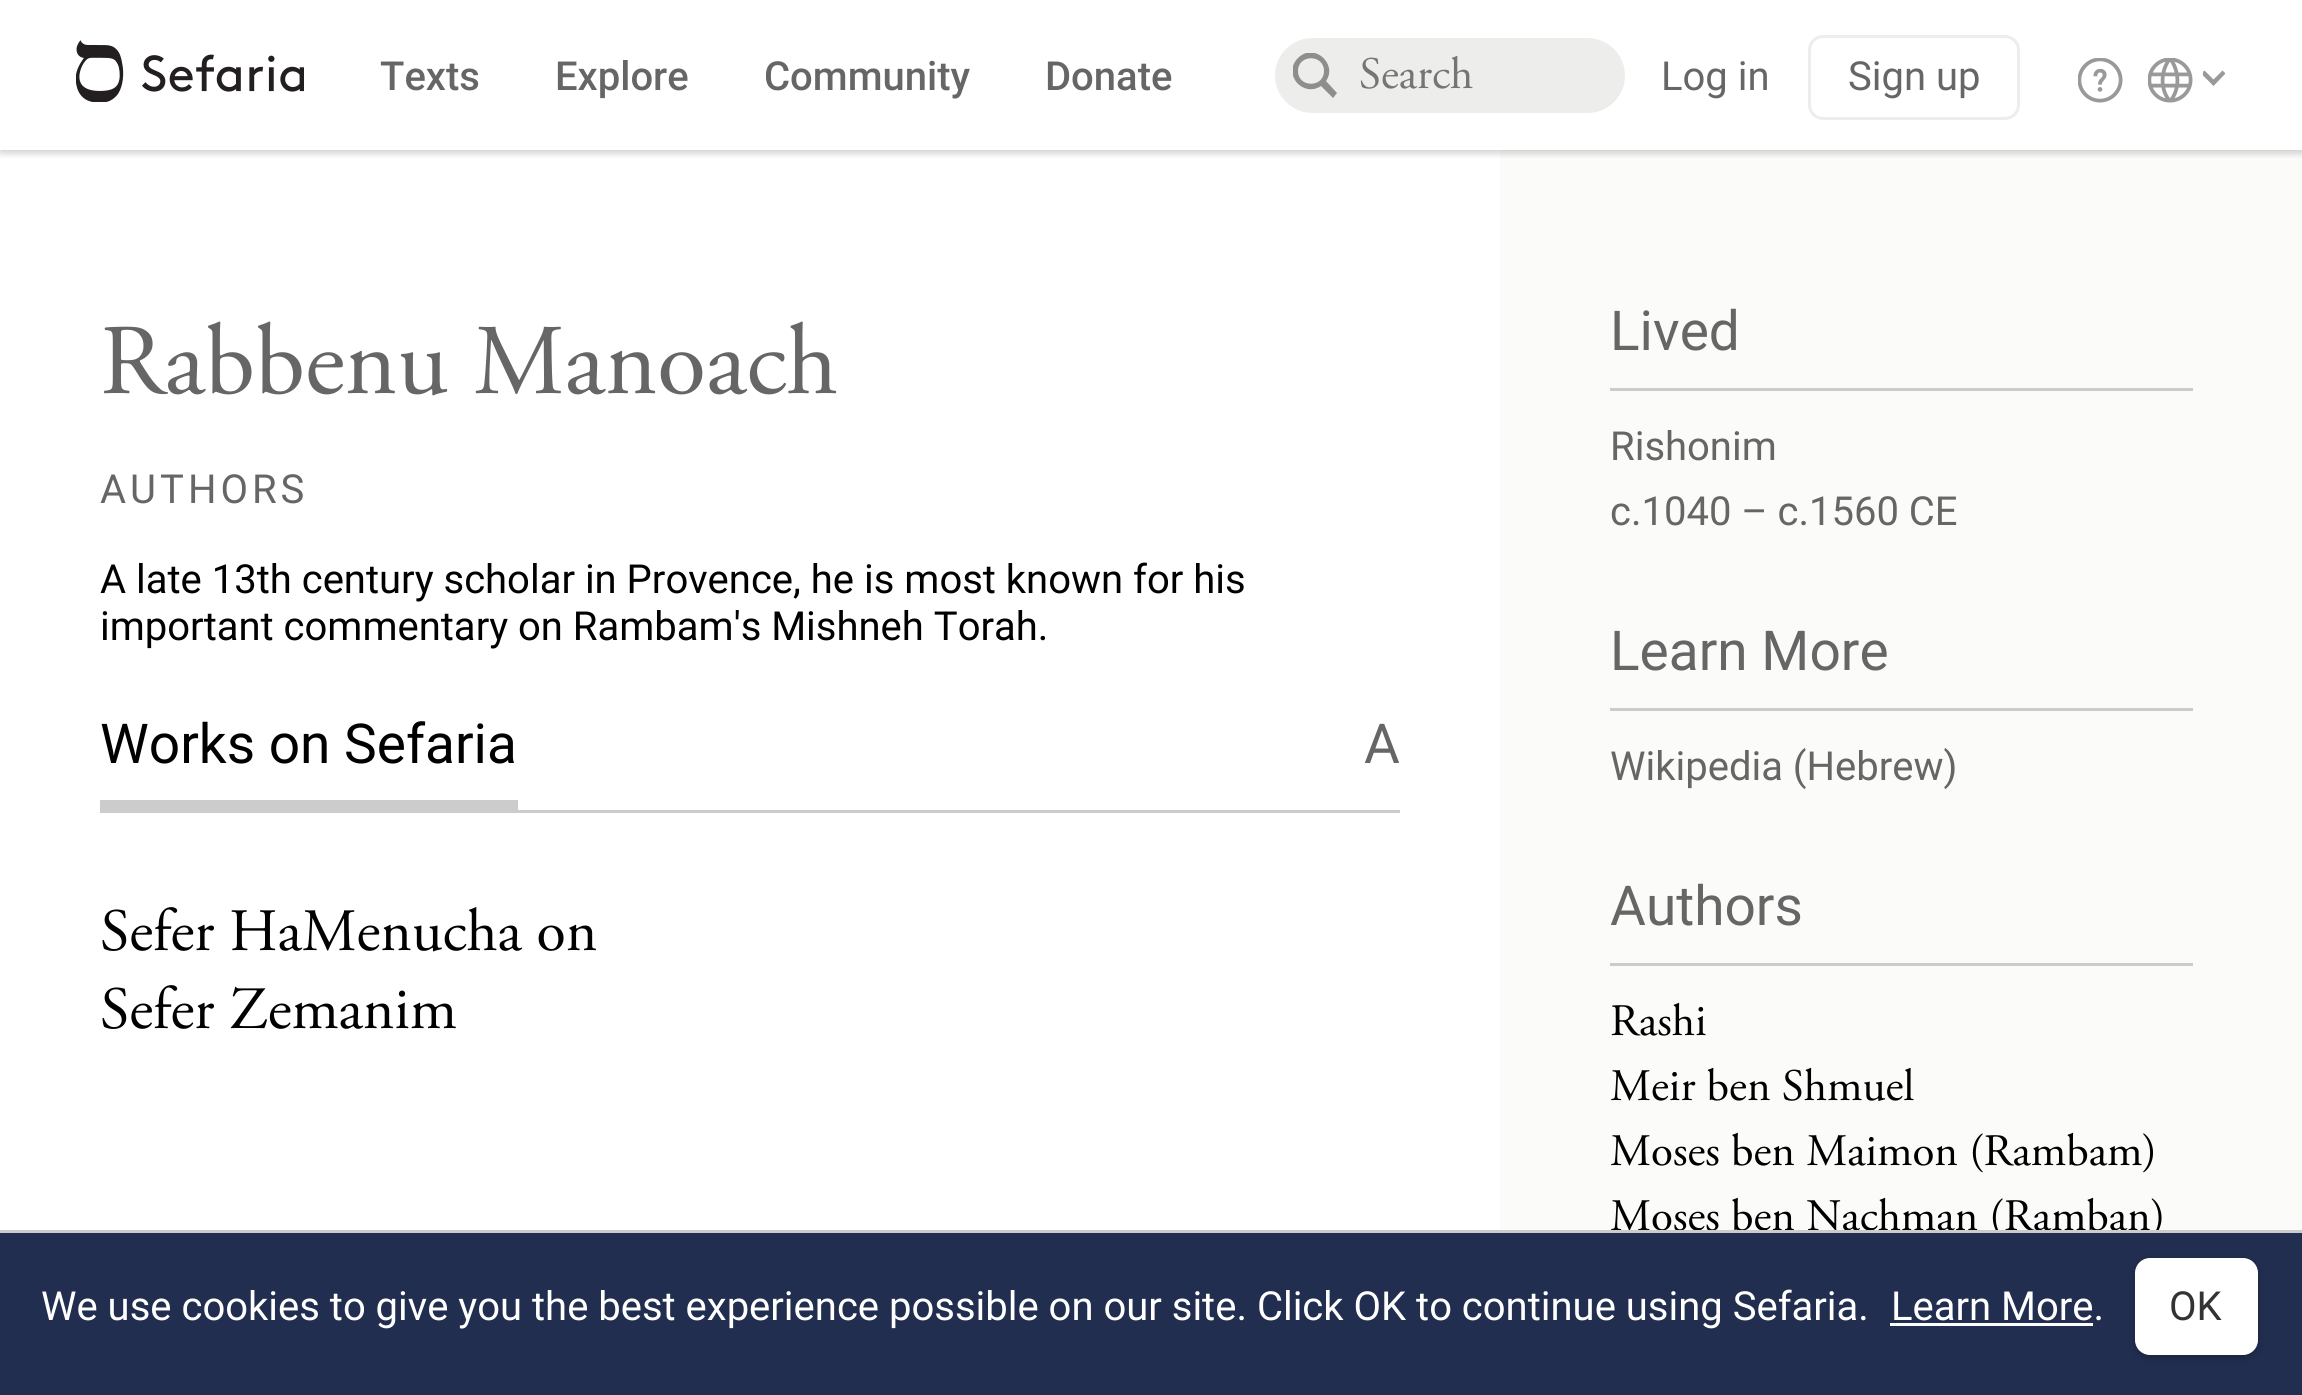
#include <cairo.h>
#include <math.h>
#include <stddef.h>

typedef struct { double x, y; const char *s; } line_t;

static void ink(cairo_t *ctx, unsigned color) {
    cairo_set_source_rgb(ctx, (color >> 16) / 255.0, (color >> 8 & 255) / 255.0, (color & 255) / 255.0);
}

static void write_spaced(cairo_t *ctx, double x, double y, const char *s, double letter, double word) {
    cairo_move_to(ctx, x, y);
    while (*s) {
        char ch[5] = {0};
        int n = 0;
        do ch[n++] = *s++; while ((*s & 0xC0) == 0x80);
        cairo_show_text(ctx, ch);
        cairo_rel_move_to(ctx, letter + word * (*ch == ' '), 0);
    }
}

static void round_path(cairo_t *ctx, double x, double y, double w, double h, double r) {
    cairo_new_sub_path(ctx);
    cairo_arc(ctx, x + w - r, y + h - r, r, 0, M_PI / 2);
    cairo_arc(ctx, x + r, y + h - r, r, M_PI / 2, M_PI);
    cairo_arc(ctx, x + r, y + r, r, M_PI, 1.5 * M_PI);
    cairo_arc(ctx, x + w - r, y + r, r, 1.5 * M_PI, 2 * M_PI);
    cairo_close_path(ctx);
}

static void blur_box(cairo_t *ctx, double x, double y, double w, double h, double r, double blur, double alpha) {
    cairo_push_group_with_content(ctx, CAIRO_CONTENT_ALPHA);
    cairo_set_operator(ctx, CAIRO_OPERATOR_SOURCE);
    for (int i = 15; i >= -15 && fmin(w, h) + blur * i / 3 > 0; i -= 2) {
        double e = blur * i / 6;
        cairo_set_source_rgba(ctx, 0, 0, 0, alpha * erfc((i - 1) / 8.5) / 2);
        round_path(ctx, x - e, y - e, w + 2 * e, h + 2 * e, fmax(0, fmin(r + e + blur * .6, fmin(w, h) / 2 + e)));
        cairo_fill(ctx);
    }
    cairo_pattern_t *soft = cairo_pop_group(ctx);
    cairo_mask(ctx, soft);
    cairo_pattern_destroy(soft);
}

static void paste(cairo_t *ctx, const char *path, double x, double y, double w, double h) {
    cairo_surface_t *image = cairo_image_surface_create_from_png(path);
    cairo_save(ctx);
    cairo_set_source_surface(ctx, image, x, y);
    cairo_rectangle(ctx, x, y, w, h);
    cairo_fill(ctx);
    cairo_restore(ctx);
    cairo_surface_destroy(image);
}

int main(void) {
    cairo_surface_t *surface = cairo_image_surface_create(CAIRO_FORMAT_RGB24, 2302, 1395);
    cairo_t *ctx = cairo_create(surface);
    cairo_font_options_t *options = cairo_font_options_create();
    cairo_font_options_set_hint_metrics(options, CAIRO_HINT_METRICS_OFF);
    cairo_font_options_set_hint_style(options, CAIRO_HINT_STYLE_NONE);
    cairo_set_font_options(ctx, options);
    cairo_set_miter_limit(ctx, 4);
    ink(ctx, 0xFFFFFF);
    cairo_paint(ctx);
    ink(ctx, 0xFBFBFA);
    cairo_rectangle(ctx, 1500, 150, 802, 1080);
    cairo_fill(ctx);
    cairo_save(ctx);
    cairo_rectangle(ctx, 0, 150, 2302, 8);
    cairo_clip(ctx);
    ink(ctx, 0x000000);
    blur_box(ctx, 0, 3, 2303, 150, 0, 4, 0.2);
    cairo_restore(ctx);
    paste(ctx, "media/1.png", 76, 40, 228, 62);
    cairo_select_font_face(ctx, "Roboto Medium", CAIRO_FONT_SLANT_NORMAL, CAIRO_FONT_WEIGHT_NORMAL);
    cairo_set_font_size(ctx, 40);
    ink(ctx, 0x666666);
    {
        static const line_t items[] = {
            {380, 90, "Texts"},
            {555, 90, "Explore"},
            {764, 90, "Community"},
            {1045, 90, "Donate"},
        };
        for (size_t i = 0; i < sizeof items / sizeof *items; i++) {
            cairo_move_to(ctx, items[i].x, items[i].y);
            cairo_show_text(ctx, items[i].s);
        }
    }
    ink(ctx, 0xEDEDEC);
    round_path(ctx, 1275, 38, 350, 75, 37.5);
    cairo_fill(ctx);
    cairo_save(ctx);
    cairo_rectangle(ctx, 1293, 53, 45, 45);
    cairo_clip(ctx);
    ink(ctx, 0x8E8E8E);
    cairo_new_path(ctx);
    cairo_move_to(ctx, 1337, 93);
    cairo_line_to(ctx, 1326, 81);
    cairo_curve_to(ctx, 1338, 64, 1314, 42, 1298, 58);
    cairo_curve_to(ctx, 1282, 74, 1303, 98, 1321, 86);
    cairo_line_to(ctx, 1333, 98);
    cairo_close_path(ctx);
    cairo_move_to(ctx, 1298, 71);
    cairo_curve_to(ctx, 1298, 54, 1324, 54, 1324, 71);
    cairo_curve_to(ctx, 1324, 88, 1298, 88, 1298, 71);
    cairo_close_path(ctx);
    cairo_fill(ctx);
    cairo_restore(ctx);
    cairo_select_font_face(ctx, "Adobe Garamond", CAIRO_FONT_SLANT_NORMAL, CAIRO_FONT_WEIGHT_NORMAL);
    cairo_set_font_size(ctx, 45);
    ink(ctx, 0x757575);
    cairo_move_to(ctx, 1359, 88);
    cairo_show_text(ctx, "Search");
    cairo_select_font_face(ctx, "Roboto", CAIRO_FONT_SLANT_NORMAL, CAIRO_FONT_WEIGHT_NORMAL);
    cairo_set_font_size(ctx, 40);
    ink(ctx, 0x666666);
    cairo_move_to(ctx, 1661, 90);
    cairo_show_text(ctx, "Log in");
    round_path(ctx, 1809.5, 36.5, 209, 82, 13.5);
    ink(ctx, 0xEDEDEC);
    cairo_set_line_width(ctx, 3);
    cairo_stroke(ctx);
    ink(ctx, 0x666666);
    cairo_move_to(ctx, 1848, 90);
    cairo_show_text(ctx, "Sign up");
    paste(ctx, "media/2.png", 2078, 58, 45, 45);
    paste(ctx, "media/3.png", 2148, 58, 45, 45);
    cairo_save(ctx);
    cairo_rectangle(ctx, 2203, 70, 22, 18);
    cairo_clip(ctx);
    ink(ctx, 0x999999);
    cairo_new_path(ctx);
    cairo_move_to(ctx, 2222.5, 70.5);
    cairo_line_to(ctx, 2225.5, 73.5);
    cairo_line_to(ctx, 2213.5, 86);
    cairo_line_to(ctx, 2201, 73.5);
    cairo_line_to(ctx, 2204.5, 70.5);
    cairo_line_to(ctx, 2213.5, 79.5);
    cairo_close_path(ctx);
    cairo_fill(ctx);
    cairo_restore(ctx);
    cairo_select_font_face(ctx, "Adobe Garamond", CAIRO_FONT_SLANT_NORMAL, CAIRO_FONT_WEIGHT_NORMAL);
    cairo_set_font_size(ctx, 100);
    cairo_move_to(ctx, 100, 393);
    cairo_show_text(ctx, "Rabbenu Manoach");
    cairo_select_font_face(ctx, "Roboto", CAIRO_FONT_SLANT_NORMAL, CAIRO_FONT_WEIGHT_NORMAL);
    cairo_set_font_size(ctx, 40);
    write_spaced(ctx, 100, 503, "AUTHORS", 4, 0);
    ink(ctx, 0x000000);
    cairo_move_to(ctx, 100, 593);
    cairo_show_text(ctx, "A late 13th century scholar in Provence, he is most known for his");
    cairo_move_to(ctx, 100, 640);
    cairo_show_text(ctx, "important commentary on Rambam's Mishneh Torah.");
    ink(ctx, 0xCCCCCC);
    cairo_rectangle(ctx, 100, 810, 1300, 3);
    cairo_fill(ctx);
    cairo_rectangle(ctx, 100, 800, 418, 10);
    cairo_fill(ctx);
    cairo_set_font_size(ctx, 55);
    ink(ctx, 0x000000);
    cairo_move_to(ctx, 100, 763);
    cairo_show_text(ctx, "Works on Sefaria");
    ink(ctx, 0x666666);
    cairo_move_to(ctx, 1364, 763);
    cairo_show_text(ctx, "A");
    cairo_select_font_face(ctx, "Adobe Garamond", CAIRO_FONT_SLANT_NORMAL, CAIRO_FONT_WEIGHT_NORMAL);
    cairo_set_font_size(ctx, 60);
    ink(ctx, 0x000000);
    cairo_move_to(ctx, 100, 950);
    cairo_show_text(ctx, "Sefer HaMenucha on");
    cairo_move_to(ctx, 100, 1028);
    cairo_show_text(ctx, "Sefer Zemanim");
    ink(ctx, 0xCCCCCC);
    cairo_rectangle(ctx, 1610, 388, 583, 3);
    cairo_fill(ctx);
    cairo_select_font_face(ctx, "Roboto", CAIRO_FONT_SLANT_NORMAL, CAIRO_FONT_WEIGHT_NORMAL);
    cairo_set_font_size(ctx, 55);
    ink(ctx, 0x666666);
    cairo_move_to(ctx, 1610, 350);
    cairo_show_text(ctx, "Lived");
    cairo_set_font_size(ctx, 40);
    cairo_move_to(ctx, 1610, 460);
    cairo_show_text(ctx, "Rishonim");
    cairo_move_to(ctx, 1610, 525);
    cairo_show_text(ctx, "c.1040 – c.1560 CE");
    ink(ctx, 0xCCCCCC);
    cairo_rectangle(ctx, 1610, 708, 583, 3);
    cairo_fill(ctx);
    cairo_set_font_size(ctx, 55);
    ink(ctx, 0x666666);
    cairo_move_to(ctx, 1610, 670);
    cairo_show_text(ctx, "Learn More");
    cairo_set_font_size(ctx, 40);
    cairo_move_to(ctx, 1610, 780);
    cairo_show_text(ctx, "Wikipedia (Hebrew)");
    ink(ctx, 0xCCCCCC);
    cairo_rectangle(ctx, 1610, 963, 583, 3);
    cairo_fill(ctx);
    cairo_set_font_size(ctx, 55);
    ink(ctx, 0x666666);
    cairo_move_to(ctx, 1610, 925);
    cairo_show_text(ctx, "Authors");
    cairo_select_font_face(ctx, "Adobe Garamond", CAIRO_FONT_SLANT_NORMAL, CAIRO_FONT_WEIGHT_NORMAL);
    cairo_set_font_size(ctx, 45);
    ink(ctx, 0x000000);
    {
        static const line_t items[] = {
            {1610, 1035, "Rashi"},
            {1610, 1100, "Meir ben Shmuel"},
            {1610, 1165, "Moses ben Maimon (Rambam)"},
            {1610, 1230, "Moses ben Nachman (Ramban)"},
        };
        for (size_t i = 0; i < sizeof items / sizeof *items; i++) {
            cairo_move_to(ctx, items[i].x, items[i].y);
            cairo_show_text(ctx, items[i].s);
        }
    }
    ink(ctx, 0x212E50);
    cairo_rectangle(ctx, 0, 1233, 2302, 162);
    cairo_fill(ctx);
    ink(ctx, 0xCCCCCC);
    cairo_rectangle(ctx, 0, 1230, 2302, 3);
    cairo_fill(ctx);
    cairo_select_font_face(ctx, "Roboto", CAIRO_FONT_SLANT_NORMAL, CAIRO_FONT_WEIGHT_NORMAL);
    cairo_set_font_size(ctx, 40);
    ink(ctx, 0xFFFFFF);
    cairo_move_to(ctx, 41, 1320);
    cairo_show_text(ctx, "We use cookies to give you the best experience possible on our site. Click OK to continue using Sefaria.");
    cairo_move_to(ctx, 1891, 1320);
    cairo_show_text(ctx, "Learn More.");
    cairo_rectangle(ctx, 1890, 1323, 203, 3);
    cairo_fill(ctx);
    ink(ctx, 0x000000);
    blur_box(ctx, 2135, 1260, 123, 98, 15, 4, 0.25);
    ink(ctx, 0xFFFFFF);
    round_path(ctx, 2135, 1258, 123, 97, 15);
    cairo_fill(ctx);
    ink(ctx, 0x333333);
    cairo_move_to(ctx, 2169, 1320);
    cairo_show_text(ctx, "OK");
    cairo_surface_write_to_png(surface, "image.png");
    cairo_font_options_destroy(options);
    cairo_destroy(ctx);
    cairo_surface_destroy(surface);
    return 0;
}
